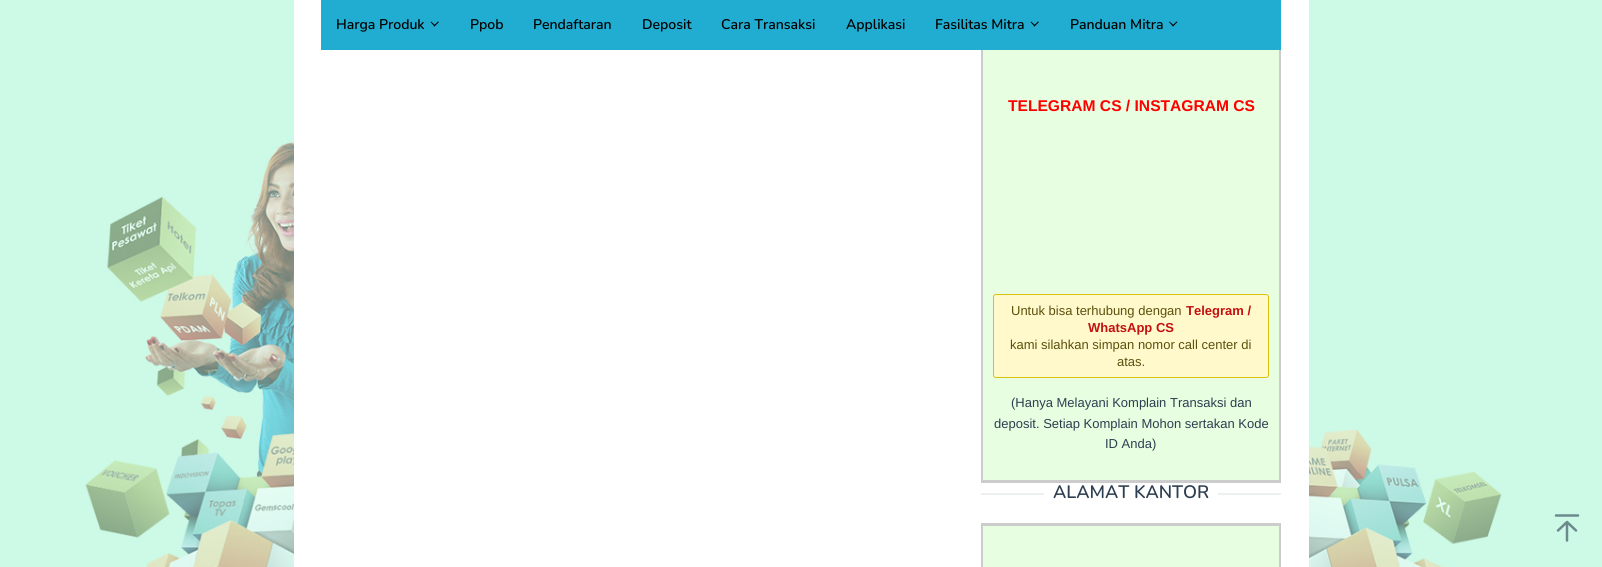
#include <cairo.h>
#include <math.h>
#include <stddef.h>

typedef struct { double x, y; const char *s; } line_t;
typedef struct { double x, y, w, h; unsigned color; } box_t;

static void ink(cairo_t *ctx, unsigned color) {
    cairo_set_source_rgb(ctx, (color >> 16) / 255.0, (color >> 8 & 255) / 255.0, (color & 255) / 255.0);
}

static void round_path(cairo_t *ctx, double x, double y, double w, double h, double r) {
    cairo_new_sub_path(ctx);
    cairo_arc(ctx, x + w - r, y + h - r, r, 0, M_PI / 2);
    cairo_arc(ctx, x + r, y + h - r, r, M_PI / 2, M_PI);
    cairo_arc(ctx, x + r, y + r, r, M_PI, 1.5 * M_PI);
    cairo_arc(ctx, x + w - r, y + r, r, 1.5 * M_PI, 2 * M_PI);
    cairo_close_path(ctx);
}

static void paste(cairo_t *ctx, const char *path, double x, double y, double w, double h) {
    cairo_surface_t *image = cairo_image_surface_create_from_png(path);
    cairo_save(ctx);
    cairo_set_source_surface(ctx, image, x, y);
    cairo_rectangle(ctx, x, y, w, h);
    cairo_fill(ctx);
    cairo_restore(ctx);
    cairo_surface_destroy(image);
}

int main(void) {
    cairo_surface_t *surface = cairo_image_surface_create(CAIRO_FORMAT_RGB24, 1602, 567);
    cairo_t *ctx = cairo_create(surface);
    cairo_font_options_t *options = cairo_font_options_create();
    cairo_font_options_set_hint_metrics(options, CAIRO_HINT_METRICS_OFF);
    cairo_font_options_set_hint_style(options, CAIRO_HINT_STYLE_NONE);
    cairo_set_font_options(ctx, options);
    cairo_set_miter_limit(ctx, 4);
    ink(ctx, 0xFFFFFF);
    cairo_paint(ctx);
    paste(ctx, "media/1.png", 0, 0, 1602, 567);
    {
        static const box_t items[] = {
            {294, 50, 1015, 517, 0xFFFFFF},
            {981, 50, 300, 433, 0xCCCCCC},
            {983, 50, 296, 430, 0xE8FEE1},
        };
        for (size_t i = 0; i < sizeof items / sizeof *items; i++) {
            ink(ctx, items[i].color);
            cairo_rectangle(ctx, items[i].x, items[i].y, items[i].w, items[i].h);
            cairo_fill(ctx);
        }
    }
    cairo_rectangle(ctx, 982.5, -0.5, 297, 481);
    ink(ctx, 0xCCCCCC);
    cairo_set_line_width(ctx, 1);
    cairo_stroke(ctx);
    ink(ctx, 0xFFFFFF);
    cairo_rectangle(ctx, 294, 0, 1015, 50);
    cairo_fill(ctx);
    ink(ctx, 0x21ADD1);
    cairo_rectangle(ctx, 321, 0, 960, 50);
    cairo_fill(ctx);
    cairo_select_font_face(ctx, "Nunito SemiBold", CAIRO_FONT_SLANT_NORMAL, CAIRO_FONT_WEIGHT_NORMAL);
    cairo_set_font_size(ctx, 14);
    ink(ctx, 0x000000);
    cairo_move_to(ctx, 336, 29);
    cairo_show_text(ctx, "Harga Produk");
    cairo_new_path(ctx);
    cairo_move_to(ctx, 438, 21.5);
    cairo_line_to(ctx, 439, 22);
    cairo_line_to(ctx, 434.5, 26.5);
    cairo_line_to(ctx, 434, 25.5);
    cairo_close_path(ctx);
    cairo_fill(ctx);
    cairo_new_path(ctx);
    cairo_move_to(ctx, 431, 21.5);
    cairo_line_to(ctx, 435.5, 25.5);
    cairo_line_to(ctx, 434.5, 26.5);
    cairo_line_to(ctx, 430.5, 22);
    cairo_close_path(ctx);
    cairo_fill(ctx);
    {
        static const line_t items[] = {
            {470, 29, "Ppob"},
            {533, 29, "Pendaftaran"},
            {642, 29, "Deposit"},
            {721, 29, "Cara Transaksi"},
            {846, 29, "Applikasi"},
            {935, 29, "Fasilitas Mitra"},
        };
        for (size_t i = 0; i < sizeof items / sizeof *items; i++) {
            cairo_move_to(ctx, items[i].x, items[i].y);
            cairo_show_text(ctx, items[i].s);
        }
    }
    cairo_new_path(ctx);
    cairo_move_to(ctx, 1038, 21.5);
    cairo_line_to(ctx, 1039, 22);
    cairo_line_to(ctx, 1034.5, 26.5);
    cairo_line_to(ctx, 1034, 25.5);
    cairo_close_path(ctx);
    cairo_fill(ctx);
    cairo_new_path(ctx);
    cairo_move_to(ctx, 1031, 21.5);
    cairo_line_to(ctx, 1035.5, 25.5);
    cairo_line_to(ctx, 1034.5, 26.5);
    cairo_line_to(ctx, 1030.5, 22);
    cairo_close_path(ctx);
    cairo_fill(ctx);
    cairo_move_to(ctx, 1070, 29);
    cairo_show_text(ctx, "Panduan Mitra");
    cairo_new_path(ctx);
    cairo_move_to(ctx, 1176.5, 21.5);
    cairo_line_to(ctx, 1177.5, 22);
    cairo_line_to(ctx, 1173, 26.5);
    cairo_line_to(ctx, 1172.5, 25.5);
    cairo_close_path(ctx);
    cairo_fill(ctx);
    cairo_new_path(ctx);
    cairo_move_to(ctx, 1169.5, 21.5);
    cairo_line_to(ctx, 1174, 25.5);
    cairo_line_to(ctx, 1173, 26.5);
    cairo_line_to(ctx, 1169, 22);
    cairo_close_path(ctx);
    cairo_fill(ctx);
    cairo_select_font_face(ctx, "Liberation Sans", CAIRO_FONT_SLANT_NORMAL, CAIRO_FONT_WEIGHT_BOLD);
    cairo_set_font_size(ctx, 15.6);
    ink(ctx, 0xFF0000);
    cairo_move_to(ctx, 1008, 111);
    cairo_show_text(ctx, "TELEGRAM CS / INSTAGRAM CS");
    ink(ctx, 0xFFF9CC);
    round_path(ctx, 993.5, 294.5, 275, 83, 2.5);
    cairo_fill_preserve(ctx);
    ink(ctx, 0xDAC111);
    cairo_stroke(ctx);
    cairo_select_font_face(ctx, "Liberation Sans", CAIRO_FONT_SLANT_NORMAL, CAIRO_FONT_WEIGHT_NORMAL);
    cairo_set_font_size(ctx, 13);
    ink(ctx, 0x5A510B);
    cairo_move_to(ctx, 1011, 315);
    cairo_show_text(ctx, "Untuk bisa terhubung dengan");
    cairo_select_font_face(ctx, "Liberation Sans", CAIRO_FONT_SLANT_NORMAL, CAIRO_FONT_WEIGHT_BOLD);
    ink(ctx, 0xC31111);
    cairo_move_to(ctx, 1186, 315);
    cairo_show_text(ctx, "Telegram /");
    cairo_move_to(ctx, 1088, 332);
    cairo_show_text(ctx, "WhatsApp CS");
    cairo_select_font_face(ctx, "Liberation Sans", CAIRO_FONT_SLANT_NORMAL, CAIRO_FONT_WEIGHT_NORMAL);
    ink(ctx, 0x5A510B);
    cairo_move_to(ctx, 1010, 349);
    cairo_show_text(ctx, "kami silahkan simpan nomor call center di");
    cairo_move_to(ctx, 1117, 366);
    cairo_show_text(ctx, "atas.");
    ink(ctx, 0x2C3E50);
    {
        static const line_t items[] = {
            {1011, 407, "(Hanya Melayani Komplain Transaksi dan"},
            {994, 428, "deposit. Setiap Komplain Mohon sertakan Kode"},
            {1105, 448, "ID Anda)"},
        };
        for (size_t i = 0; i < sizeof items / sizeof *items; i++) {
            cairo_move_to(ctx, items[i].x, items[i].y);
            cairo_show_text(ctx, items[i].s);
        }
    }
    ink(ctx, 0xECF0F1);
    cairo_rectangle(ctx, 981, 493, 63, 2);
    cairo_fill(ctx);
    cairo_select_font_face(ctx, "Nunito SemiBold", CAIRO_FONT_SLANT_NORMAL, CAIRO_FONT_WEIGHT_NORMAL);
    cairo_set_font_size(ctx, 18);
    ink(ctx, 0x2C3E50);
    cairo_move_to(ctx, 1053, 498);
    cairo_show_text(ctx, "ALAMAT KANTOR");
    {
        static const box_t items[] = {
            {1218, 493, 63, 2, 0xECF0F1},
            {981, 523, 300, 44, 0xCCCCCC},
            {983, 526, 296, 41, 0xE8FEE1},
        };
        for (size_t i = 0; i < sizeof items / sizeof *items; i++) {
            ink(ctx, items[i].color);
            cairo_rectangle(ctx, items[i].x, items[i].y, items[i].w, items[i].h);
            cairo_fill(ctx);
        }
    }
    cairo_new_path(ctx);
    cairo_move_to(ctx, 1567, 540.5);
    cairo_line_to(ctx, 1567, 522);
    cairo_move_to(ctx, 1558, 530.5);
    cairo_line_to(ctx, 1567, 522);
    cairo_line_to(ctx, 1576, 530.5);
    cairo_move_to(ctx, 1556, 515.5);
    cairo_line_to(ctx, 1578, 515.5);
    ink(ctx, 0x6C898C);
    cairo_set_line_width(ctx, 2.5);
    cairo_set_line_cap(ctx, CAIRO_LINE_CAP_ROUND);
    cairo_set_line_join(ctx, CAIRO_LINE_JOIN_ROUND);
    cairo_stroke(ctx);
    cairo_surface_write_to_png(surface, "image.png");
    cairo_font_options_destroy(options);
    cairo_destroy(ctx);
    cairo_surface_destroy(surface);
    return 0;
}
